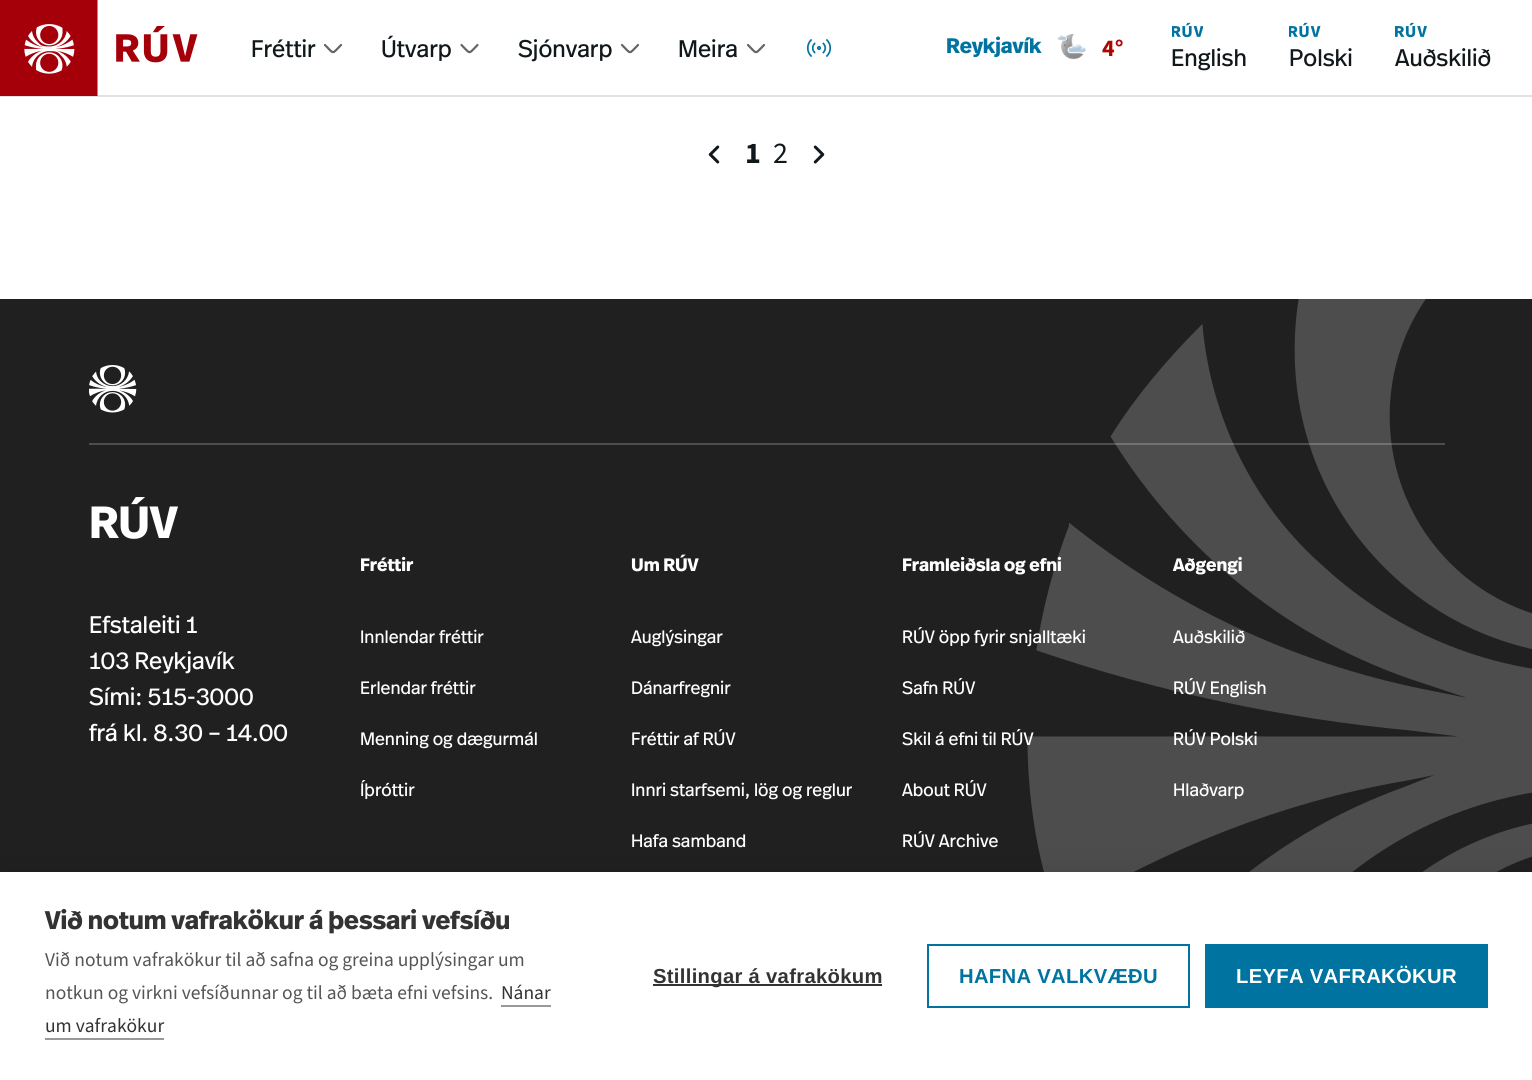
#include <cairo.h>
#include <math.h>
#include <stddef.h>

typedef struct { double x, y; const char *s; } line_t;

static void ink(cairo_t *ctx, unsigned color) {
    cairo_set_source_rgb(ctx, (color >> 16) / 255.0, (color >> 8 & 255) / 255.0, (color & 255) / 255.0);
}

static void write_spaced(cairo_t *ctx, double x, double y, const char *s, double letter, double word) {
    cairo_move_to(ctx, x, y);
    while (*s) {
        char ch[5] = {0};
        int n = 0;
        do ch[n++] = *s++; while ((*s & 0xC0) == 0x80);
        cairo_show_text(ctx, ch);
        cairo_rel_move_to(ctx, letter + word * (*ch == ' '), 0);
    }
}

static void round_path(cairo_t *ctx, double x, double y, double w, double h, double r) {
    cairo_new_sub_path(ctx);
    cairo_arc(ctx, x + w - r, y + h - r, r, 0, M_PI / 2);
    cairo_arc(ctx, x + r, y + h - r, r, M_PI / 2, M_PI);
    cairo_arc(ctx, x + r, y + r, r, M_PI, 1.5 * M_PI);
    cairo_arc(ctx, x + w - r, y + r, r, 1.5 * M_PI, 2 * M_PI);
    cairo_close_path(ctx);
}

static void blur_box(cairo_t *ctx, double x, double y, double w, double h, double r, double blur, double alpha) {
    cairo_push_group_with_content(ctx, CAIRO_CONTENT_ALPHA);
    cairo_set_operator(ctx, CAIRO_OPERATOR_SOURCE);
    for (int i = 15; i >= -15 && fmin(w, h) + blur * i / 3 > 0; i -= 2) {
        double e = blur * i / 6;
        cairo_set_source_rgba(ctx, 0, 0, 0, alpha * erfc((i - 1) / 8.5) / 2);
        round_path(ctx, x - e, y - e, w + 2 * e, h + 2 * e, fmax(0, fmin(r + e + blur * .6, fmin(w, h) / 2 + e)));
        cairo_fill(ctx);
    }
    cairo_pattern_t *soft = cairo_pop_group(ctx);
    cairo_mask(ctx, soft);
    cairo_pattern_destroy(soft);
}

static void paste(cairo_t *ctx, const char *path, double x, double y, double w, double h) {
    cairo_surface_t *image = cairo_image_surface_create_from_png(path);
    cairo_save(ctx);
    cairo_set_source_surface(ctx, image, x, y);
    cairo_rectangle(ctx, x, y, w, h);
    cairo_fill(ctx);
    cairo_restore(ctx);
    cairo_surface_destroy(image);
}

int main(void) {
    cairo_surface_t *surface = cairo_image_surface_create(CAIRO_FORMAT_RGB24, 1532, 1080);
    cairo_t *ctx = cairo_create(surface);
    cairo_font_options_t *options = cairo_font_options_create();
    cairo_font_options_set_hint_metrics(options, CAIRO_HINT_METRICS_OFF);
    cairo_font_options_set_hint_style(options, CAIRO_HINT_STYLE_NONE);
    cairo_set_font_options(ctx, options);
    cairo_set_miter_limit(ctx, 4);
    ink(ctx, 0xFFFFFF);
    cairo_paint(ctx);
    ink(ctx, 0xE2E2E2);
    cairo_rectangle(ctx, 0, 95, 1532, 2);
    cairo_fill(ctx);
    paste(ctx, "media/1.png", 0, 0, 198, 96);
    cairo_select_font_face(ctx, "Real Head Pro", CAIRO_FONT_SLANT_NORMAL, CAIRO_FONT_WEIGHT_NORMAL);
    cairo_set_font_size(ctx, 24);
    ink(ctx, 0x11181C);
    cairo_move_to(ctx, 251, 57);
    cairo_show_text(ctx, "Fréttir");
    cairo_new_path(ctx);
    cairo_move_to(ctx, 341, 45);
    cairo_curve_to(ctx, 331.5, 54.5, 334.5, 54.5, 325, 45);
    ink(ctx, 0x646464);
    cairo_set_line_width(ctx, 2.2);
    cairo_set_line_cap(ctx, CAIRO_LINE_CAP_ROUND);
    cairo_set_line_join(ctx, CAIRO_LINE_JOIN_ROUND);
    cairo_stroke(ctx);
    ink(ctx, 0x11181C);
    cairo_move_to(ctx, 381, 57);
    cairo_show_text(ctx, "Útvarp");
    cairo_new_path(ctx);
    cairo_move_to(ctx, 477.5, 45);
    cairo_curve_to(ctx, 468, 54.5, 471, 54.5, 461.5, 45);
    ink(ctx, 0x646464);
    cairo_stroke(ctx);
    ink(ctx, 0x11181C);
    cairo_move_to(ctx, 518, 57);
    cairo_show_text(ctx, "Sjónvarp");
    cairo_new_path(ctx);
    cairo_move_to(ctx, 638, 45);
    cairo_curve_to(ctx, 628.5, 54.5, 631.5, 54.5, 622, 45);
    ink(ctx, 0x646464);
    cairo_stroke(ctx);
    ink(ctx, 0x11181C);
    cairo_move_to(ctx, 678, 57);
    cairo_show_text(ctx, "Meira");
    cairo_new_path(ctx);
    cairo_move_to(ctx, 764, 45);
    cairo_curve_to(ctx, 754.5, 54.5, 757.5, 54.5, 748, 45);
    ink(ctx, 0x646464);
    cairo_stroke(ctx);
    paste(ctx, "media/2.png", 806, 39, 26, 18);
    cairo_select_font_face(ctx, "Real Head Pro", CAIRO_FONT_SLANT_NORMAL, CAIRO_FONT_WEIGHT_BOLD);
    cairo_set_font_size(ctx, 21);
    ink(ctx, 0x0073A0);
    cairo_move_to(ctx, 946, 53);
    cairo_show_text(ctx, "Reykjavík");
    paste(ctx, "media/3.png", 1057, 34, 29, 26);
    cairo_select_font_face(ctx, "Source Sans 3", CAIRO_FONT_SLANT_NORMAL, CAIRO_FONT_WEIGHT_BOLD);
    cairo_set_font_size(ctx, 24);
    ink(ctx, 0xAC0802);
    cairo_move_to(ctx, 1102, 56);
    cairo_show_text(ctx, "4°");
    paste(ctx, "media/4.png", 1172, 22, 31, 16);
    cairo_select_font_face(ctx, "Real Head Pro", CAIRO_FONT_SLANT_NORMAL, CAIRO_FONT_WEIGHT_NORMAL);
    ink(ctx, 0x11181C);
    cairo_move_to(ctx, 1171, 66);
    cairo_show_text(ctx, "English");
    paste(ctx, "media/5.png", 1289, 22, 32, 16);
    cairo_move_to(ctx, 1289, 66);
    cairo_show_text(ctx, "Polski");
    paste(ctx, "media/6.png", 1395, 22, 32, 16);
    cairo_move_to(ctx, 1395, 66);
    cairo_show_text(ctx, "Auðskilið");
    paste(ctx, "media/7.png", 708, 145, 12, 19);
    cairo_select_font_face(ctx, "Source Sans 3", CAIRO_FONT_SLANT_NORMAL, CAIRO_FONT_WEIGHT_BOLD);
    cairo_set_font_size(ctx, 30);
    cairo_move_to(ctx, 745, 163);
    cairo_show_text(ctx, "1");
    cairo_select_font_face(ctx, "Source Sans 3", CAIRO_FONT_SLANT_NORMAL, CAIRO_FONT_WEIGHT_NORMAL);
    cairo_move_to(ctx, 773, 163);
    cairo_show_text(ctx, "2");
    paste(ctx, "media/8.png", 813, 145, 12, 19);
    ink(ctx, 0x202020);
    cairo_rectangle(ctx, 0, 299, 1532, 573);
    cairo_fill(ctx);
    paste(ctx, "media/9.png", 89, 365, 48, 48);
    ink(ctx, 0x4D4D4D);
    cairo_rectangle(ctx, 89, 443, 1356, 2);
    cairo_fill(ctx);
    cairo_select_font_face(ctx, "Real Head Pro", CAIRO_FONT_SLANT_NORMAL, CAIRO_FONT_WEIGHT_BOLD);
    cairo_set_font_size(ctx, 45);
    ink(ctx, 0xFFFFFF);
    cairo_move_to(ctx, 89, 538);
    cairo_show_text(ctx, "RÚV");
    cairo_set_font_size(ctx, 18);
    {
        static const line_t items[] = {
            {360, 571, "Fréttir"},
            {631, 571, "Um RÚV"},
            {902, 571, "Framleiðsla og efni"},
            {1173, 571, "Aðgengi"},
        };
        for (size_t i = 0; i < sizeof items / sizeof *items; i++) {
            cairo_move_to(ctx, items[i].x, items[i].y);
            cairo_show_text(ctx, items[i].s);
        }
    }
    cairo_select_font_face(ctx, "Real Head Pro", CAIRO_FONT_SLANT_NORMAL, CAIRO_FONT_WEIGHT_NORMAL);
    cairo_set_font_size(ctx, 24);
    {
        static const line_t items[] = {
            {89, 633, "Efstaleiti 1"},
            {89, 669, "103 Reykjavík"},
            {89, 705, "Sími: 515-3000"},
            {89, 741, "frá kl. 8.30 – 14.00"},
        };
        for (size_t i = 0; i < sizeof items / sizeof *items; i++) {
            cairo_move_to(ctx, items[i].x, items[i].y);
            cairo_show_text(ctx, items[i].s);
        }
    }
    cairo_set_font_size(ctx, 18);
    {
        static const line_t items[] = {
            {360, 643, "Innlendar fréttir"},
            {360, 694, "Erlendar fréttir"},
            {360, 745, "Menning og dægurmál"},
            {360, 796, "Íþróttir"},
            {631, 643, "Auglýsingar"},
            {631, 694, "Dánarfregnir"},
            {631, 745, "Fréttir af RÚV"},
            {631, 796, "Innri starfsemi, lög og reglur"},
            {631, 847, "Hafa samband"},
        };
        for (size_t i = 0; i < sizeof items / sizeof *items; i++) {
            cairo_move_to(ctx, items[i].x, items[i].y);
            cairo_show_text(ctx, items[i].s);
        }
    }
    paste(ctx, "media/10.png", 1027, 299, 505, 573);
    {
        static const line_t items[] = {
            {902, 643, "RÚV öpp fyrir snjalltæki"},
            {902, 694, "Safn RÚV"},
            {902, 745, "Skil á efni til RÚV"},
            {902, 796, "About RÚV"},
            {902, 847, "RÚV Archive"},
            {1173, 643, "Auðskilið"},
            {1173, 694, "RÚV English"},
            {1173, 745, "RÚV Polski"},
            {1173, 796, "Hlaðvarp"},
        };
        for (size_t i = 0; i < sizeof items / sizeof *items; i++) {
            cairo_move_to(ctx, items[i].x, items[i].y);
            cairo_show_text(ctx, items[i].s);
        }
    }
    ink(ctx, 0x000000);
    blur_box(ctx, 0, 872, 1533, 208, 0, 15, 0.1);
    ink(ctx, 0xFFFFFF);
    cairo_rectangle(ctx, 0, 872, 1532, 208);
    cairo_fill(ctx);
    cairo_select_font_face(ctx, "Real Head Pro", CAIRO_FONT_SLANT_NORMAL, CAIRO_FONT_WEIGHT_BOLD);
    cairo_set_font_size(ctx, 25.5);
    ink(ctx, 0x333333);
    cairo_move_to(ctx, 45, 929);
    cairo_show_text(ctx, "Við notum vafrakökur á þessari vefsíðu");
    cairo_select_font_face(ctx, "Source Sans 3", CAIRO_FONT_SLANT_NORMAL, CAIRO_FONT_WEIGHT_NORMAL);
    cairo_set_font_size(ctx, 19.5);
    ink(ctx, 0x555555);
    cairo_move_to(ctx, 45, 966);
    cairo_show_text(ctx, "Við notum vafrakökur til að safna og greina upplýsingar um");
    cairo_move_to(ctx, 45, 999);
    cairo_show_text(ctx, "notkun og virkni vefsíðunnar og til að bæta efni vefsins.");
    ink(ctx, 0x333333);
    cairo_move_to(ctx, 501, 999);
    cairo_show_text(ctx, "Nánar");
    ink(ctx, 0x999999);
    cairo_rectangle(ctx, 501, 1005, 50, 2);
    cairo_fill(ctx);
    ink(ctx, 0x333333);
    cairo_move_to(ctx, 45, 1032);
    cairo_show_text(ctx, "um vafrakökur");
    ink(ctx, 0x999999);
    cairo_rectangle(ctx, 45, 1038, 119, 2);
    cairo_fill(ctx);
    ink(ctx, 0x333333);
    cairo_rectangle(ctx, 653, 984, 229, 2);
    cairo_fill(ctx);
    cairo_select_font_face(ctx, "Liberation Sans", CAIRO_FONT_SLANT_NORMAL, CAIRO_FONT_WEIGHT_BOLD);
    cairo_set_font_size(ctx, 20.25);
    write_spaced(ctx, 653, 983, "Stillingar á vafrakökum", 0.3, 0);
    cairo_rectangle(ctx, 928, 945, 261, 62);
    ink(ctx, 0x0073A0);
    cairo_set_line_width(ctx, 2);
    cairo_set_line_cap(ctx, CAIRO_LINE_CAP_BUTT);
    cairo_set_line_join(ctx, CAIRO_LINE_JOIN_MITER);
    cairo_stroke(ctx);
    write_spaced(ctx, 959, 983, "HAFNA VALKVÆÐU", 0.3, 0);
    cairo_rectangle(ctx, 1205, 944, 283, 64);
    cairo_fill(ctx);
    ink(ctx, 0xFFFFFF);
    write_spaced(ctx, 1236, 983, "LEYFA VAFRAKÖKUR", 0.3, 0);
    cairo_surface_write_to_png(surface, "image.png");
    cairo_font_options_destroy(options);
    cairo_destroy(ctx);
    cairo_surface_destroy(surface);
    return 0;
}
